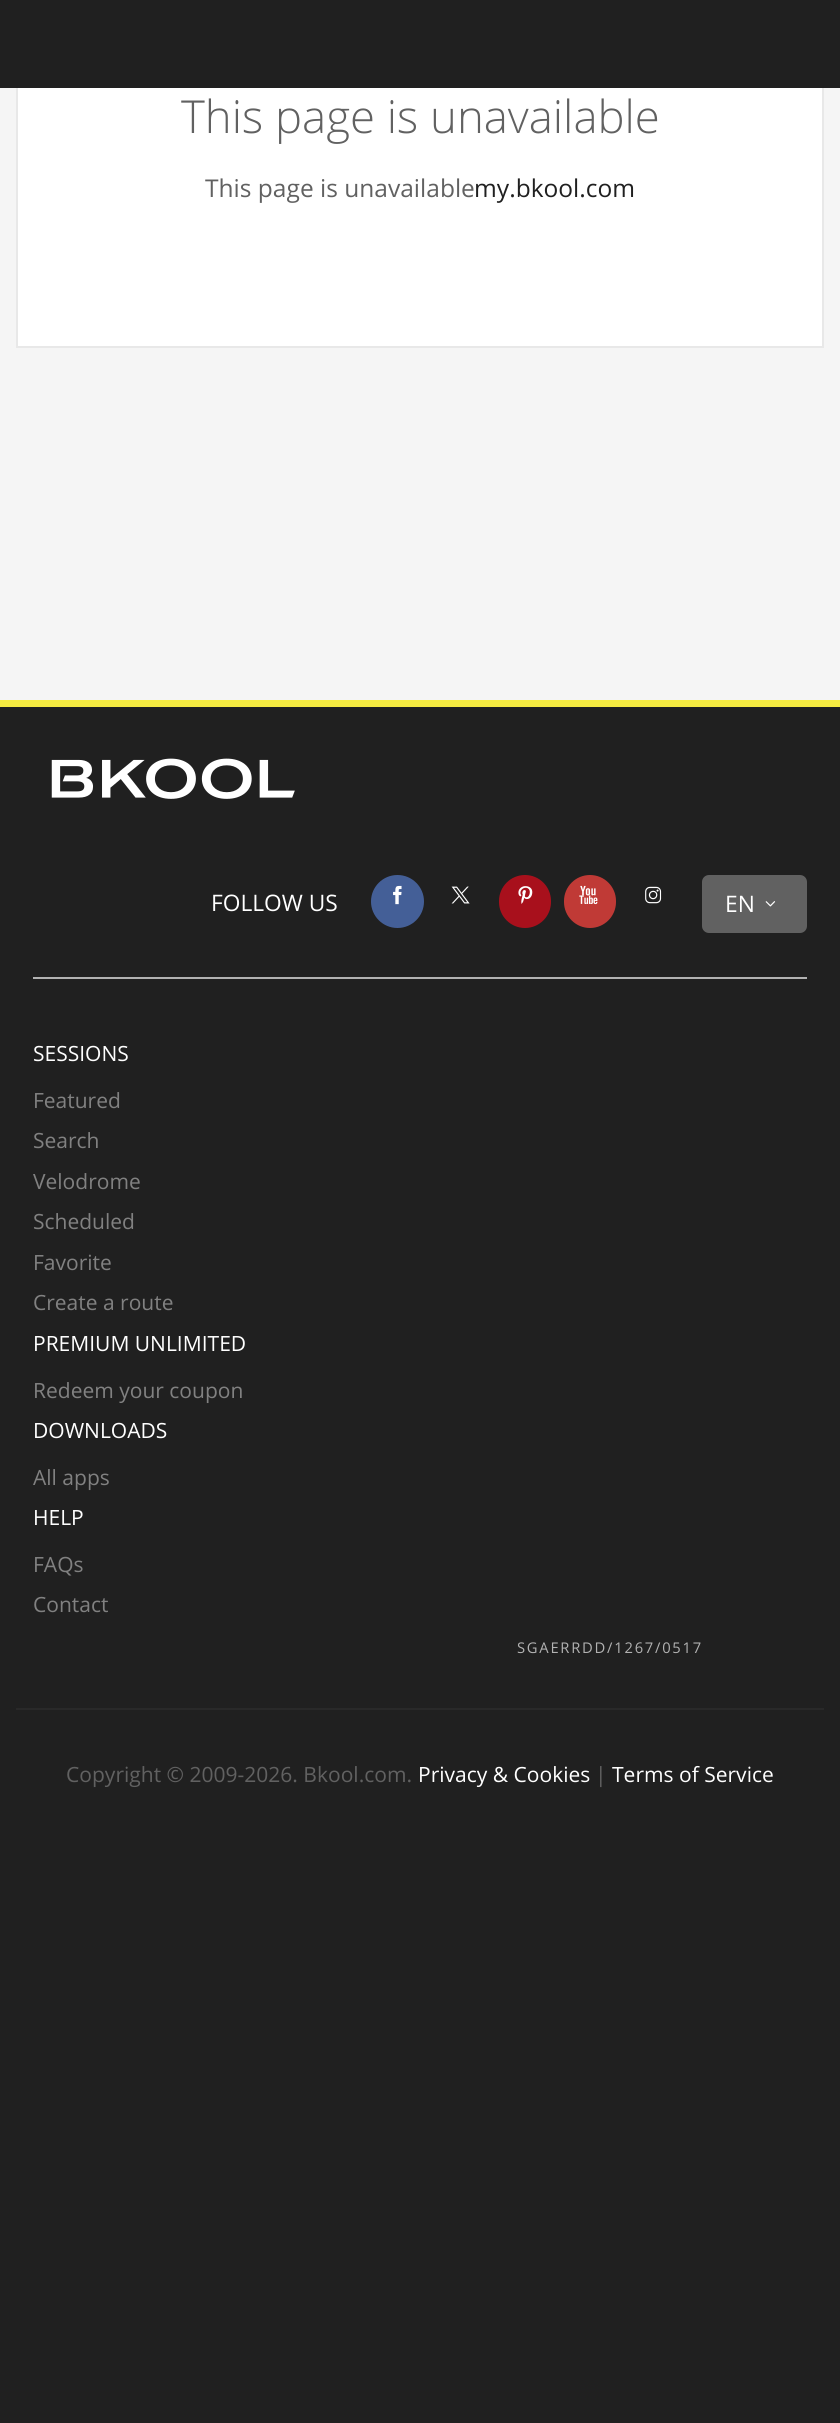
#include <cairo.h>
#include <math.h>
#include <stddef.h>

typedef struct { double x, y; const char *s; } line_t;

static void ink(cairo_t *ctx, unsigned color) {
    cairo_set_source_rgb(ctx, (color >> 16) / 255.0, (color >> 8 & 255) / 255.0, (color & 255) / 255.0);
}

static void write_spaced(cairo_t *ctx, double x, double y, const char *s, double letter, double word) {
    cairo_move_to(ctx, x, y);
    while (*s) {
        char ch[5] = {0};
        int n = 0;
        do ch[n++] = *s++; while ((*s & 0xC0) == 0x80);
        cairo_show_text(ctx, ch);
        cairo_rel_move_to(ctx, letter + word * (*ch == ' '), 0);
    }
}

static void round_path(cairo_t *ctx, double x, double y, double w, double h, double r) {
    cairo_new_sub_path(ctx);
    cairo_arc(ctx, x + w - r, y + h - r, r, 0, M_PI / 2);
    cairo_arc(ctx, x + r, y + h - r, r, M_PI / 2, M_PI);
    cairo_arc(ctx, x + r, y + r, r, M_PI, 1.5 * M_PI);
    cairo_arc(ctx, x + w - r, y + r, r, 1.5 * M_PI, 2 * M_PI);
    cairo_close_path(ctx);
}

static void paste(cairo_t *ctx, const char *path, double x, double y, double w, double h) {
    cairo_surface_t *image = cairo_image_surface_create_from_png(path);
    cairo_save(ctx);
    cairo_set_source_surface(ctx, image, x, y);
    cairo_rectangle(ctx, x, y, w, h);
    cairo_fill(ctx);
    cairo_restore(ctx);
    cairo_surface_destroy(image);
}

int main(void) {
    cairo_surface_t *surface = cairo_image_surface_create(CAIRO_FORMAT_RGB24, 840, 2423);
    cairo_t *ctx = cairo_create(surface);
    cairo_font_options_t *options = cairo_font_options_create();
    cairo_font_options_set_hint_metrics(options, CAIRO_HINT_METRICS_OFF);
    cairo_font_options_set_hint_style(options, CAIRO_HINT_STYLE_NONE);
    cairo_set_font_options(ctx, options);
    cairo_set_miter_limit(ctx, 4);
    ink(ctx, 0x202020);
    cairo_paint(ctx);
    ink(ctx, 0xF5F5F5);
    cairo_rectangle(ctx, 0, 88, 840, 612);
    cairo_fill(ctx);
    ink(ctx, 0xFFFFFF);
    cairo_rectangle(ctx, 18, 88, 804, 258);
    cairo_fill(ctx);
    cairo_rectangle(ctx, 17, 54, 806, 293);
    ink(ctx, 0xE8E8E8);
    cairo_stroke(ctx);
    ink(ctx, 0x202020);
    cairo_rectangle(ctx, 16, 53, 808, 35);
    cairo_fill(ctx);
    cairo_select_font_face(ctx, "Open Sans Light", CAIRO_FONT_SLANT_NORMAL, CAIRO_FONT_WEIGHT_NORMAL);
    cairo_set_font_size(ctx, 45.5);
    ink(ctx, 0x616161);
    cairo_move_to(ctx, 181, 133);
    cairo_show_text(ctx, "This page is unavailable");
    cairo_select_font_face(ctx, "Open Sans", CAIRO_FONT_SLANT_NORMAL, CAIRO_FONT_WEIGHT_NORMAL);
    cairo_set_font_size(ctx, 24.5);
    cairo_move_to(ctx, 205, 197);
    cairo_show_text(ctx, "This page is unavailable");
    ink(ctx, 0x202020);
    cairo_move_to(ctx, 474, 197);
    cairo_show_text(ctx, "my.bkool.com");
    ink(ctx, 0xF5EB41);
    cairo_rectangle(ctx, 0, 700, 840, 7);
    cairo_fill(ctx);
    ink(ctx, 0xB2B2B2);
    cairo_rectangle(ctx, 33, 977, 774, 2);
    cairo_fill(ctx);
    paste(ctx, "media/1.png", 51, 758, 244, 41);
    cairo_set_font_size(ctx, 22.75);
    ink(ctx, 0xFFFFFF);
    cairo_move_to(ctx, 211, 911);
    cairo_show_text(ctx, "FOLLOW US");
    ink(ctx, 0x445F97);
    cairo_new_path(ctx);
    cairo_arc(ctx, 397.5, 901.5, 26.5, 0, 2 * M_PI);
    cairo_fill(ctx);
    paste(ctx, "media/2.png", 393, 885, 9, 20);
    paste(ctx, "media/3.png", 451, 886, 19, 18);
    ink(ctx, 0xA8101C);
    round_path(ctx, 499, 875, 52, 53, 26);
    cairo_fill(ctx);
    paste(ctx, "media/4.png", 518, 886, 15, 18);
    ink(ctx, 0xC03A36);
    round_path(ctx, 564, 875, 52, 53, 26);
    cairo_fill(ctx);
    paste(ctx, "media/5.png", 579, 885, 19, 20);
    paste(ctx, "media/6.png", 645, 886, 17, 18);
    ink(ctx, 0x616161);
    round_path(ctx, 702, 875, 105, 58, 7);
    cairo_fill(ctx);
    ink(ctx, 0xFFFFFF);
    cairo_move_to(ctx, 725, 912);
    cairo_show_text(ctx, "EN");
    paste(ctx, "media/7.png", 765, 901, 11, 6);
    ink(ctx, 0x292929);
    cairo_rectangle(ctx, 16, 1708, 808, 2);
    cairo_fill(ctx);
    cairo_set_font_size(ctx, 21);
    ink(ctx, 0xFFFFFF);
    cairo_move_to(ctx, 33, 1061);
    cairo_show_text(ctx, "SESSIONS");
    ink(ctx, 0x818181);
    {
        static const line_t items[] = {
            {33, 1108, "Featured"},
            {33, 1148, "Search"},
            {33, 1189, "Velodrome"},
            {33, 1229, "Scheduled"},
            {33, 1270, "Favorite"},
            {33, 1310, "Create a route"},
        };
        for (size_t i = 0; i < sizeof items / sizeof *items; i++) {
            cairo_move_to(ctx, items[i].x, items[i].y);
            cairo_show_text(ctx, items[i].s);
        }
    }
    ink(ctx, 0xFFFFFF);
    cairo_move_to(ctx, 33, 1351);
    cairo_show_text(ctx, "PREMIUM UNLIMITED");
    ink(ctx, 0x818181);
    cairo_move_to(ctx, 33, 1398);
    cairo_show_text(ctx, "Redeem your coupon");
    ink(ctx, 0xFFFFFF);
    cairo_move_to(ctx, 33, 1438);
    cairo_show_text(ctx, "DOWNLOADS");
    ink(ctx, 0x818181);
    cairo_move_to(ctx, 33, 1485);
    cairo_show_text(ctx, "All apps");
    ink(ctx, 0xFFFFFF);
    cairo_move_to(ctx, 33, 1525);
    cairo_show_text(ctx, "HELP");
    ink(ctx, 0x818181);
    cairo_move_to(ctx, 33, 1572);
    cairo_show_text(ctx, "FAQs");
    cairo_move_to(ctx, 33, 1612);
    cairo_show_text(ctx, "Contact");
    cairo_set_font_size(ctx, 14.75);
    ink(ctx, 0xB2B2B2);
    write_spaced(ctx, 517, 1653, "SGAERRDD/1267/0517", 1.75, 0);
    cairo_set_font_size(ctx, 21);
    ink(ctx, 0x616161);
    cairo_move_to(ctx, 66, 1782);
    cairo_show_text(ctx, "Copyright © 2009-2026. Bkool.com.");
    ink(ctx, 0xFFFFFF);
    cairo_move_to(ctx, 418, 1782);
    cairo_show_text(ctx, "Privacy & Cookies");
    ink(ctx, 0x616161);
    cairo_move_to(ctx, 595, 1782);
    cairo_show_text(ctx, "|");
    ink(ctx, 0xFFFFFF);
    cairo_move_to(ctx, 612, 1782);
    cairo_show_text(ctx, "Terms of Service");
    cairo_surface_write_to_png(surface, "image.png");
    cairo_font_options_destroy(options);
    cairo_destroy(ctx);
    cairo_surface_destroy(surface);
    return 0;
}
